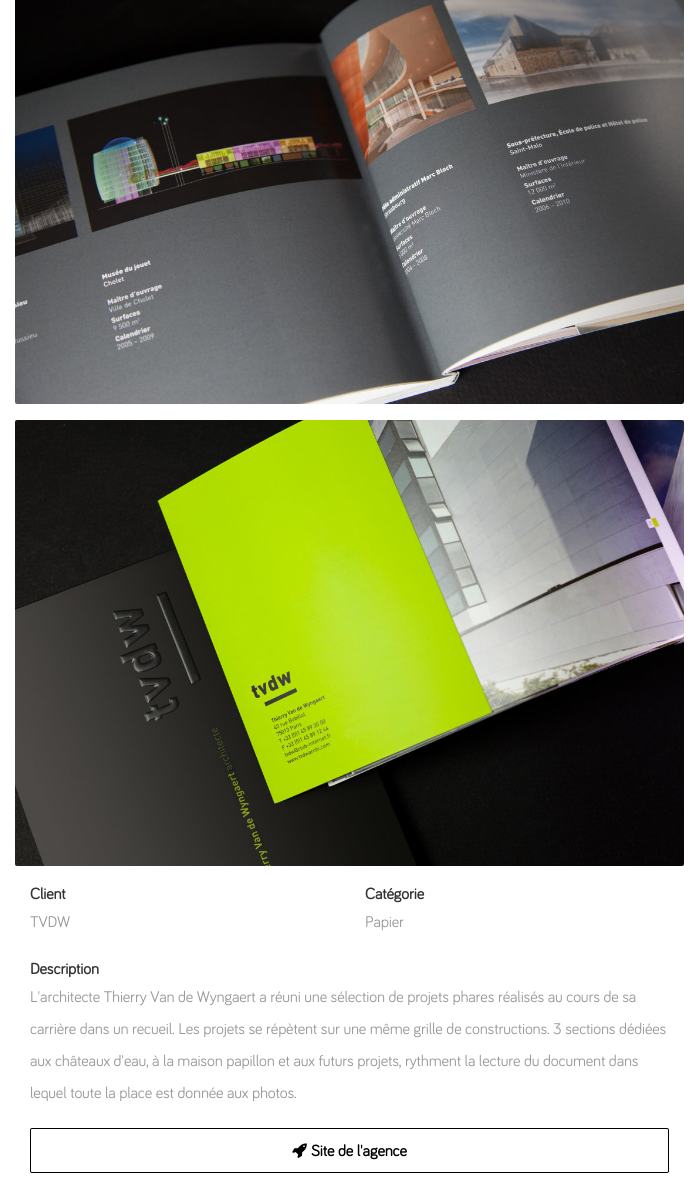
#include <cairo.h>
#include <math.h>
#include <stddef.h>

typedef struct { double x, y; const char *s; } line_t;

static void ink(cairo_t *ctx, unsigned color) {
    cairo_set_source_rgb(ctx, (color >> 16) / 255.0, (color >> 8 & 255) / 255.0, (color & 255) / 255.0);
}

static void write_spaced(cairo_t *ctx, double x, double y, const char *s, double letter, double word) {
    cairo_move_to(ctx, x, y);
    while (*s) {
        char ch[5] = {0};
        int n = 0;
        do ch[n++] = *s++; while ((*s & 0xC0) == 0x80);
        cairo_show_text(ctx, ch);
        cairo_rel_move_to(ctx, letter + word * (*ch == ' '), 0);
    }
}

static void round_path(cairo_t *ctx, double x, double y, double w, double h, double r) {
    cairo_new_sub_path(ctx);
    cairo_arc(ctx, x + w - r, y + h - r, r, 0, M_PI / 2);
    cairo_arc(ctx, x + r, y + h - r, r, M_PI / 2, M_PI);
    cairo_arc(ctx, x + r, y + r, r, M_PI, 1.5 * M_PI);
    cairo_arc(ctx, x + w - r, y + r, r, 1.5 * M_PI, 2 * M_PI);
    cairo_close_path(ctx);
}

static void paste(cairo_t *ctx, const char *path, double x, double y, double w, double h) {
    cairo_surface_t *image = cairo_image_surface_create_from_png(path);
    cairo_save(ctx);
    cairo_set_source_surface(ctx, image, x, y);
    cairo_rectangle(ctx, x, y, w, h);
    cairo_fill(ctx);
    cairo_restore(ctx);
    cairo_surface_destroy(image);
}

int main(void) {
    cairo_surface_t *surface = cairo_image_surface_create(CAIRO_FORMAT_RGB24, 699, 1199);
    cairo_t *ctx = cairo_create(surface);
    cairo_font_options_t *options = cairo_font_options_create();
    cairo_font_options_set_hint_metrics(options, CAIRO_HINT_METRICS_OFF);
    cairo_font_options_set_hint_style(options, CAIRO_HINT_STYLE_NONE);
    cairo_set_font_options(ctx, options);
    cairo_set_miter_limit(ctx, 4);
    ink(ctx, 0xFFFFFF);
    cairo_paint(ctx);
    paste(ctx, "media/1.png", 15, 0, 669, 404);
    paste(ctx, "media/2.png", 15, 420, 669, 446);
    cairo_select_font_face(ctx, "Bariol", CAIRO_FONT_SLANT_NORMAL, CAIRO_FONT_WEIGHT_BOLD);
    cairo_set_font_size(ctx, 16);
    ink(ctx, 0x333333);
    write_spaced(ctx, 30, 899, "Client", -0.16, 0);
    cairo_select_font_face(ctx, "Bariol", CAIRO_FONT_SLANT_NORMAL, CAIRO_FONT_WEIGHT_NORMAL);
    ink(ctx, 0x999999);
    write_spaced(ctx, 30, 927, "TVDW", -0.16, 0);
    cairo_select_font_face(ctx, "Bariol", CAIRO_FONT_SLANT_NORMAL, CAIRO_FONT_WEIGHT_BOLD);
    ink(ctx, 0x333333);
    write_spaced(ctx, 365, 899, "Catégorie", -0.16, 0);
    cairo_select_font_face(ctx, "Bariol", CAIRO_FONT_SLANT_NORMAL, CAIRO_FONT_WEIGHT_NORMAL);
    ink(ctx, 0x999999);
    write_spaced(ctx, 365, 927, "Papier", -0.16, 0);
    cairo_select_font_face(ctx, "Bariol", CAIRO_FONT_SLANT_NORMAL, CAIRO_FONT_WEIGHT_BOLD);
    ink(ctx, 0x333333);
    write_spaced(ctx, 30, 974, "Description", -0.16, 0);
    cairo_select_font_face(ctx, "Bariol", CAIRO_FONT_SLANT_NORMAL, CAIRO_FONT_WEIGHT_NORMAL);
    ink(ctx, 0x999999);
    {
        static const line_t items[] = {
            {30, 1002, "L'architecte Thierry Van de Wyngaert a réuni une sélection de projets phares réalisés au cours de sa"},
            {30, 1034, "carrière dans un recueil. Les projets se répètent sur une même grille de constructions. 3 sections dédiées"},
            {30, 1066, "aux châteaux d'eau, à la maison papillon et aux futurs projets, rythment la lecture du document dans"},
            {30, 1098, "lequel toute la place est donnée aux photos."},
        };
        for (size_t i = 0; i < sizeof items / sizeof *items; i++) {
            write_spaced(ctx, items[i].x, items[i].y, items[i].s, -0.16, 0);
        }
    }
    round_path(ctx, 30.5, 1128.5, 638, 44, 1.5);
    ink(ctx, 0x000000);
    cairo_set_line_width(ctx, 1);
    cairo_stroke(ctx);
    paste(ctx, "media/3.png", 292, 1143, 15, 15);
    cairo_select_font_face(ctx, "Bariol", CAIRO_FONT_SLANT_NORMAL, CAIRO_FONT_WEIGHT_BOLD);
    write_spaced(ctx, 311, 1156, "Site de l'agence", -0.16, 0);
    cairo_surface_write_to_png(surface, "image.png");
    cairo_font_options_destroy(options);
    cairo_destroy(ctx);
    cairo_surface_destroy(surface);
    return 0;
}
